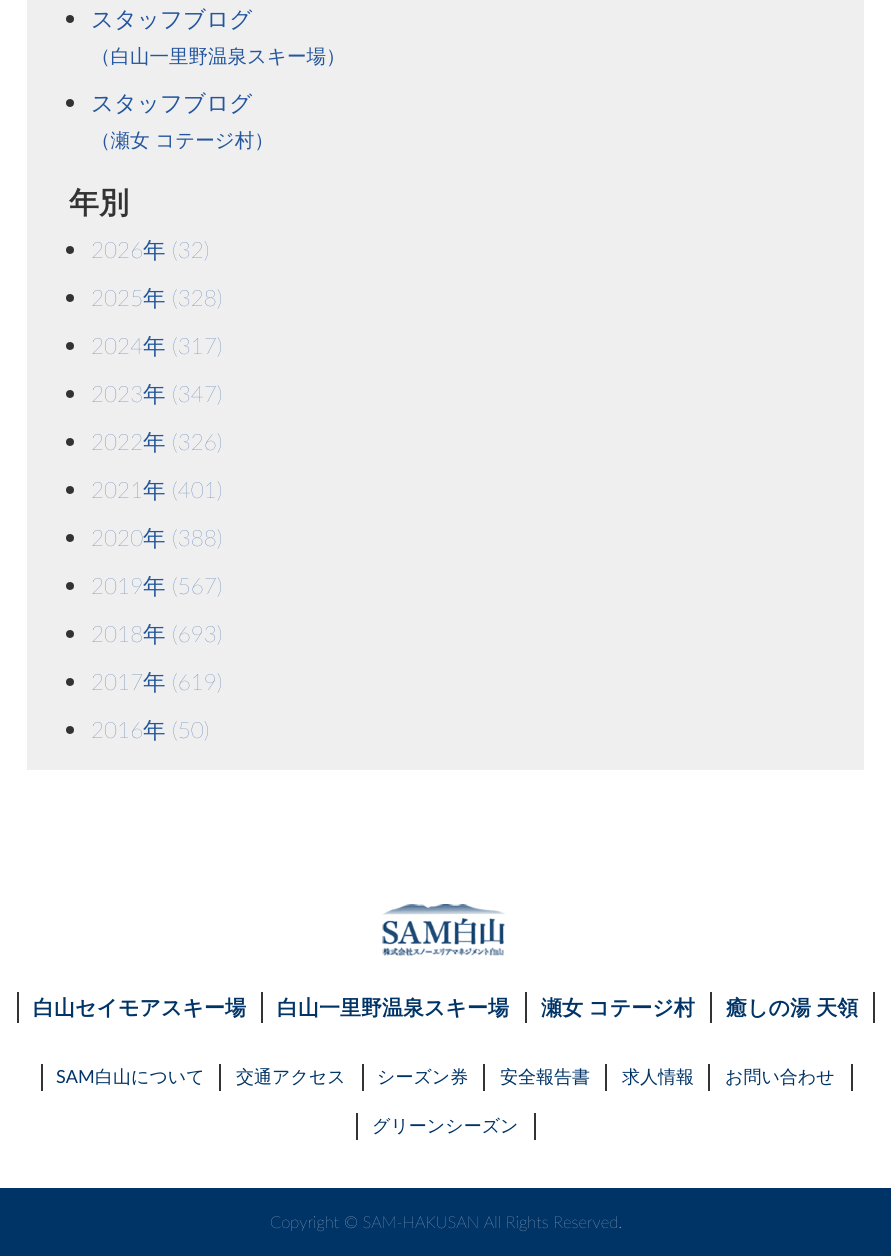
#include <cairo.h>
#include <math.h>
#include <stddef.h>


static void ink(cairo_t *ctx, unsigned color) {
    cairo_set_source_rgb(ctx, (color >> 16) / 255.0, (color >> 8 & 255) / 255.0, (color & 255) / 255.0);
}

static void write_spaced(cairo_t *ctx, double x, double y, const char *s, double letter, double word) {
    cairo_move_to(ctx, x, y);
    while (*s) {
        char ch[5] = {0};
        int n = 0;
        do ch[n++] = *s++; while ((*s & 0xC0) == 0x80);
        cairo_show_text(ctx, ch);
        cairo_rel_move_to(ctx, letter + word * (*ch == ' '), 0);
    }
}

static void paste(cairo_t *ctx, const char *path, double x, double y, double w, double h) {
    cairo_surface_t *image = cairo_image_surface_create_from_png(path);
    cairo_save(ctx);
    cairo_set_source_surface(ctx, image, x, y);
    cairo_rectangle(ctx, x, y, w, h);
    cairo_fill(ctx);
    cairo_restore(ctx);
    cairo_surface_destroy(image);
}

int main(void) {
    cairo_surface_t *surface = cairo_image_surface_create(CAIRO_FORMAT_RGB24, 891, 1256);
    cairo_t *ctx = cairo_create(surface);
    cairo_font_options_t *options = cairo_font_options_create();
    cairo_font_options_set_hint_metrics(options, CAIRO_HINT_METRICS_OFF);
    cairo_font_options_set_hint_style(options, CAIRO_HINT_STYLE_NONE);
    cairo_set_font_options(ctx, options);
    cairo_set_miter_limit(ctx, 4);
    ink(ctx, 0xFFFFFF);
    cairo_paint(ctx);
    ink(ctx, 0xEFEFEF);
    cairo_rectangle(ctx, 27, 0, 837, 770);
    cairo_fill(ctx);
    ink(ctx, 0x333333);
    cairo_arc(ctx, 70, 19, 4, 0, 2 * M_PI);
    cairo_fill(ctx);
    cairo_select_font_face(ctx, "WenQuanYi Zen Hei Medium", CAIRO_FONT_SLANT_NORMAL, CAIRO_FONT_WEIGHT_NORMAL);
    cairo_set_font_size(ctx, 22.5);
    ink(ctx, 0x23569E);
    cairo_move_to(ctx, 91, 27);
    cairo_show_text(ctx, "スタッフブログ");
    cairo_set_font_size(ctx, 19.5);
    cairo_move_to(ctx, 91, 63);
    cairo_show_text(ctx, "（白山一里野温泉スキー場）");
    ink(ctx, 0x333333);
    cairo_new_path(ctx);
    cairo_arc(ctx, 70, 103, 4, 0, 2 * M_PI);
    cairo_fill(ctx);
    cairo_set_font_size(ctx, 22.5);
    ink(ctx, 0x23569E);
    cairo_move_to(ctx, 91, 111);
    cairo_show_text(ctx, "スタッフブログ");
    cairo_set_font_size(ctx, 19.5);
    cairo_move_to(ctx, 91, 147);
    cairo_show_text(ctx, "（瀬女 コテージ村）");
    cairo_select_font_face(ctx, "WenQuanYi Zen Hei", CAIRO_FONT_SLANT_NORMAL, CAIRO_FONT_WEIGHT_BOLD);
    cairo_set_font_size(ctx, 30);
    ink(ctx, 0x333333);
    cairo_move_to(ctx, 69, 213);
    cairo_show_text(ctx, "年別");
    cairo_new_path(ctx);
    cairo_arc(ctx, 70, 250, 4, 0, 2 * M_PI);
    cairo_fill(ctx);
    cairo_select_font_face(ctx, "Lato ExtraLight", CAIRO_FONT_SLANT_NORMAL, CAIRO_FONT_WEIGHT_NORMAL);
    cairo_set_font_size(ctx, 22.5);
    ink(ctx, 0x23569E);
    cairo_move_to(ctx, 91, 258);
    cairo_show_text(ctx, "2026");
    cairo_select_font_face(ctx, "WenQuanYi Zen Hei Medium", CAIRO_FONT_SLANT_NORMAL, CAIRO_FONT_WEIGHT_NORMAL);
    cairo_move_to(ctx, 143, 258);
    cairo_show_text(ctx, "年");
    cairo_select_font_face(ctx, "Lato ExtraLight", CAIRO_FONT_SLANT_NORMAL, CAIRO_FONT_WEIGHT_NORMAL);
    cairo_move_to(ctx, 172, 258);
    cairo_show_text(ctx, "(32)");
    ink(ctx, 0x333333);
    cairo_new_path(ctx);
    cairo_arc(ctx, 70, 298, 4, 0, 2 * M_PI);
    cairo_fill(ctx);
    ink(ctx, 0x23569E);
    cairo_move_to(ctx, 91, 306);
    cairo_show_text(ctx, "2025");
    cairo_select_font_face(ctx, "WenQuanYi Zen Hei Medium", CAIRO_FONT_SLANT_NORMAL, CAIRO_FONT_WEIGHT_NORMAL);
    cairo_move_to(ctx, 143, 306);
    cairo_show_text(ctx, "年");
    cairo_select_font_face(ctx, "Lato ExtraLight", CAIRO_FONT_SLANT_NORMAL, CAIRO_FONT_WEIGHT_NORMAL);
    cairo_move_to(ctx, 172, 306);
    cairo_show_text(ctx, "(328)");
    ink(ctx, 0x333333);
    cairo_new_path(ctx);
    cairo_arc(ctx, 70, 346, 4, 0, 2 * M_PI);
    cairo_fill(ctx);
    ink(ctx, 0x23569E);
    cairo_move_to(ctx, 91, 354);
    cairo_show_text(ctx, "2024");
    cairo_select_font_face(ctx, "WenQuanYi Zen Hei Medium", CAIRO_FONT_SLANT_NORMAL, CAIRO_FONT_WEIGHT_NORMAL);
    cairo_move_to(ctx, 143, 354);
    cairo_show_text(ctx, "年");
    cairo_select_font_face(ctx, "Lato ExtraLight", CAIRO_FONT_SLANT_NORMAL, CAIRO_FONT_WEIGHT_NORMAL);
    cairo_move_to(ctx, 172, 354);
    cairo_show_text(ctx, "(317)");
    ink(ctx, 0x333333);
    cairo_new_path(ctx);
    cairo_arc(ctx, 70, 394, 4, 0, 2 * M_PI);
    cairo_fill(ctx);
    ink(ctx, 0x23569E);
    cairo_move_to(ctx, 91, 402);
    cairo_show_text(ctx, "2023");
    cairo_select_font_face(ctx, "WenQuanYi Zen Hei Medium", CAIRO_FONT_SLANT_NORMAL, CAIRO_FONT_WEIGHT_NORMAL);
    cairo_move_to(ctx, 143, 402);
    cairo_show_text(ctx, "年");
    cairo_select_font_face(ctx, "Lato ExtraLight", CAIRO_FONT_SLANT_NORMAL, CAIRO_FONT_WEIGHT_NORMAL);
    cairo_move_to(ctx, 172, 402);
    cairo_show_text(ctx, "(347)");
    ink(ctx, 0x333333);
    cairo_new_path(ctx);
    cairo_arc(ctx, 70, 442, 4, 0, 2 * M_PI);
    cairo_fill(ctx);
    ink(ctx, 0x23569E);
    cairo_move_to(ctx, 91, 450);
    cairo_show_text(ctx, "2022");
    cairo_select_font_face(ctx, "WenQuanYi Zen Hei Medium", CAIRO_FONT_SLANT_NORMAL, CAIRO_FONT_WEIGHT_NORMAL);
    cairo_move_to(ctx, 143, 450);
    cairo_show_text(ctx, "年");
    cairo_select_font_face(ctx, "Lato ExtraLight", CAIRO_FONT_SLANT_NORMAL, CAIRO_FONT_WEIGHT_NORMAL);
    cairo_move_to(ctx, 172, 450);
    cairo_show_text(ctx, "(326)");
    ink(ctx, 0x333333);
    cairo_new_path(ctx);
    cairo_arc(ctx, 70, 490, 4, 0, 2 * M_PI);
    cairo_fill(ctx);
    ink(ctx, 0x23569E);
    cairo_move_to(ctx, 91, 498);
    cairo_show_text(ctx, "2021");
    cairo_select_font_face(ctx, "WenQuanYi Zen Hei Medium", CAIRO_FONT_SLANT_NORMAL, CAIRO_FONT_WEIGHT_NORMAL);
    cairo_move_to(ctx, 143, 498);
    cairo_show_text(ctx, "年");
    cairo_select_font_face(ctx, "Lato ExtraLight", CAIRO_FONT_SLANT_NORMAL, CAIRO_FONT_WEIGHT_NORMAL);
    cairo_move_to(ctx, 172, 498);
    cairo_show_text(ctx, "(401)");
    ink(ctx, 0x333333);
    cairo_new_path(ctx);
    cairo_arc(ctx, 70, 538, 4, 0, 2 * M_PI);
    cairo_fill(ctx);
    ink(ctx, 0x23569E);
    cairo_move_to(ctx, 91, 546);
    cairo_show_text(ctx, "2020");
    cairo_select_font_face(ctx, "WenQuanYi Zen Hei Medium", CAIRO_FONT_SLANT_NORMAL, CAIRO_FONT_WEIGHT_NORMAL);
    cairo_move_to(ctx, 143, 546);
    cairo_show_text(ctx, "年");
    cairo_select_font_face(ctx, "Lato ExtraLight", CAIRO_FONT_SLANT_NORMAL, CAIRO_FONT_WEIGHT_NORMAL);
    cairo_move_to(ctx, 172, 546);
    cairo_show_text(ctx, "(388)");
    ink(ctx, 0x333333);
    cairo_new_path(ctx);
    cairo_arc(ctx, 70, 586, 4, 0, 2 * M_PI);
    cairo_fill(ctx);
    ink(ctx, 0x23569E);
    cairo_move_to(ctx, 91, 594);
    cairo_show_text(ctx, "2019");
    cairo_select_font_face(ctx, "WenQuanYi Zen Hei Medium", CAIRO_FONT_SLANT_NORMAL, CAIRO_FONT_WEIGHT_NORMAL);
    cairo_move_to(ctx, 143, 594);
    cairo_show_text(ctx, "年");
    cairo_select_font_face(ctx, "Lato ExtraLight", CAIRO_FONT_SLANT_NORMAL, CAIRO_FONT_WEIGHT_NORMAL);
    cairo_move_to(ctx, 172, 594);
    cairo_show_text(ctx, "(567)");
    ink(ctx, 0x333333);
    cairo_new_path(ctx);
    cairo_arc(ctx, 70, 634, 4, 0, 2 * M_PI);
    cairo_fill(ctx);
    ink(ctx, 0x23569E);
    cairo_move_to(ctx, 91, 642);
    cairo_show_text(ctx, "2018");
    cairo_select_font_face(ctx, "WenQuanYi Zen Hei Medium", CAIRO_FONT_SLANT_NORMAL, CAIRO_FONT_WEIGHT_NORMAL);
    cairo_move_to(ctx, 143, 642);
    cairo_show_text(ctx, "年");
    cairo_select_font_face(ctx, "Lato ExtraLight", CAIRO_FONT_SLANT_NORMAL, CAIRO_FONT_WEIGHT_NORMAL);
    cairo_move_to(ctx, 172, 642);
    cairo_show_text(ctx, "(693)");
    ink(ctx, 0x333333);
    cairo_new_path(ctx);
    cairo_arc(ctx, 70, 682, 4, 0, 2 * M_PI);
    cairo_fill(ctx);
    ink(ctx, 0x23569E);
    cairo_move_to(ctx, 91, 690);
    cairo_show_text(ctx, "2017");
    cairo_select_font_face(ctx, "WenQuanYi Zen Hei Medium", CAIRO_FONT_SLANT_NORMAL, CAIRO_FONT_WEIGHT_NORMAL);
    cairo_move_to(ctx, 143, 690);
    cairo_show_text(ctx, "年");
    cairo_select_font_face(ctx, "Lato ExtraLight", CAIRO_FONT_SLANT_NORMAL, CAIRO_FONT_WEIGHT_NORMAL);
    cairo_move_to(ctx, 172, 690);
    cairo_show_text(ctx, "(619)");
    ink(ctx, 0x333333);
    cairo_new_path(ctx);
    cairo_arc(ctx, 70, 730, 4, 0, 2 * M_PI);
    cairo_fill(ctx);
    ink(ctx, 0x23569E);
    cairo_move_to(ctx, 91, 738);
    cairo_show_text(ctx, "2016");
    cairo_select_font_face(ctx, "WenQuanYi Zen Hei Medium", CAIRO_FONT_SLANT_NORMAL, CAIRO_FONT_WEIGHT_NORMAL);
    cairo_move_to(ctx, 143, 738);
    cairo_show_text(ctx, "年");
    cairo_select_font_face(ctx, "Lato ExtraLight", CAIRO_FONT_SLANT_NORMAL, CAIRO_FONT_WEIGHT_NORMAL);
    cairo_move_to(ctx, 172, 738);
    cairo_show_text(ctx, "(50)");
    paste(ctx, "media/1.png", 382, 904, 123, 52);
    ink(ctx, 0x333333);
    cairo_rectangle(ctx, 261, 992, 2, 31);
    cairo_fill(ctx);
    cairo_rectangle(ctx, 17, 992, 2, 31);
    cairo_fill(ctx);
    cairo_select_font_face(ctx, "WenQuanYi Zen Hei", CAIRO_FONT_SLANT_NORMAL, CAIRO_FONT_WEIGHT_BOLD);
    cairo_set_font_size(ctx, 21);
    ink(ctx, 0x003366);
    cairo_move_to(ctx, 33, 1015);
    cairo_show_text(ctx, "白山セイモアスキー場");
    ink(ctx, 0x333333);
    cairo_rectangle(ctx, 525, 992, 2, 31);
    cairo_fill(ctx);
    ink(ctx, 0x003366);
    cairo_move_to(ctx, 277, 1015);
    cairo_show_text(ctx, "白山一里野温泉スキー場");
    ink(ctx, 0x333333);
    cairo_rectangle(ctx, 710, 992, 2, 31);
    cairo_fill(ctx);
    ink(ctx, 0x003366);
    write_spaced(ctx, 541, 1015, "瀬女 コテージ村", 0, -1);
    ink(ctx, 0x333333);
    cairo_rectangle(ctx, 873, 992, 2, 31);
    cairo_fill(ctx);
    ink(ctx, 0x003366);
    write_spaced(ctx, 726, 1015, "癒しの湯 天領", 0, -1);
    ink(ctx, 0x333333);
    cairo_rectangle(ctx, 219, 1064, 2, 27);
    cairo_fill(ctx);
    cairo_rectangle(ctx, 41, 1064, 2, 27);
    cairo_fill(ctx);
    cairo_select_font_face(ctx, "Lato", CAIRO_FONT_SLANT_NORMAL, CAIRO_FONT_WEIGHT_NORMAL);
    cairo_set_font_size(ctx, 18);
    ink(ctx, 0x003366);
    cairo_move_to(ctx, 56, 1083);
    cairo_show_text(ctx, "SAM");
    cairo_select_font_face(ctx, "WenQuanYi Zen Hei Medium", CAIRO_FONT_SLANT_NORMAL, CAIRO_FONT_WEIGHT_NORMAL);
    cairo_move_to(ctx, 95, 1083);
    cairo_show_text(ctx, "白山について");
    ink(ctx, 0x333333);
    cairo_rectangle(ctx, 362, 1064, 2, 27);
    cairo_fill(ctx);
    ink(ctx, 0x003366);
    cairo_move_to(ctx, 236, 1083);
    cairo_show_text(ctx, "交通アクセス");
    ink(ctx, 0x333333);
    cairo_rectangle(ctx, 483, 1064, 2, 27);
    cairo_fill(ctx);
    ink(ctx, 0x003366);
    cairo_move_to(ctx, 377, 1083);
    cairo_show_text(ctx, "シーズン券");
    ink(ctx, 0x333333);
    cairo_rectangle(ctx, 605, 1064, 2, 27);
    cairo_fill(ctx);
    ink(ctx, 0x003366);
    cairo_move_to(ctx, 500, 1083);
    cairo_show_text(ctx, "安全報告書");
    ink(ctx, 0x333333);
    cairo_rectangle(ctx, 708, 1064, 2, 27);
    cairo_fill(ctx);
    ink(ctx, 0x003366);
    cairo_move_to(ctx, 622, 1083);
    cairo_show_text(ctx, "求人情報");
    ink(ctx, 0x333333);
    cairo_rectangle(ctx, 851, 1064, 2, 27);
    cairo_fill(ctx);
    ink(ctx, 0x003366);
    cairo_move_to(ctx, 725, 1083);
    cairo_show_text(ctx, "お問い合わせ");
    ink(ctx, 0x333333);
    cairo_rectangle(ctx, 534, 1113, 2, 27);
    cairo_fill(ctx);
    cairo_rectangle(ctx, 356, 1113, 2, 27);
    cairo_fill(ctx);
    ink(ctx, 0x003366);
    cairo_move_to(ctx, 372, 1132);
    cairo_show_text(ctx, "グリーンシーズン");
    cairo_rectangle(ctx, 0, 1188, 891, 68);
    cairo_fill(ctx);
    cairo_select_font_face(ctx, "Lato ExtraLight", CAIRO_FONT_SLANT_NORMAL, CAIRO_FONT_WEIGHT_NORMAL);
    cairo_set_font_size(ctx, 16.5);
    ink(ctx, 0xFEFEFE);
    cairo_move_to(ctx, 270, 1228);
    cairo_show_text(ctx, "Copyright © SAM-HAKUSAN All Rights Reserved.");
    cairo_surface_write_to_png(surface, "image.png");
    cairo_font_options_destroy(options);
    cairo_destroy(ctx);
    cairo_surface_destroy(surface);
    return 0;
}
